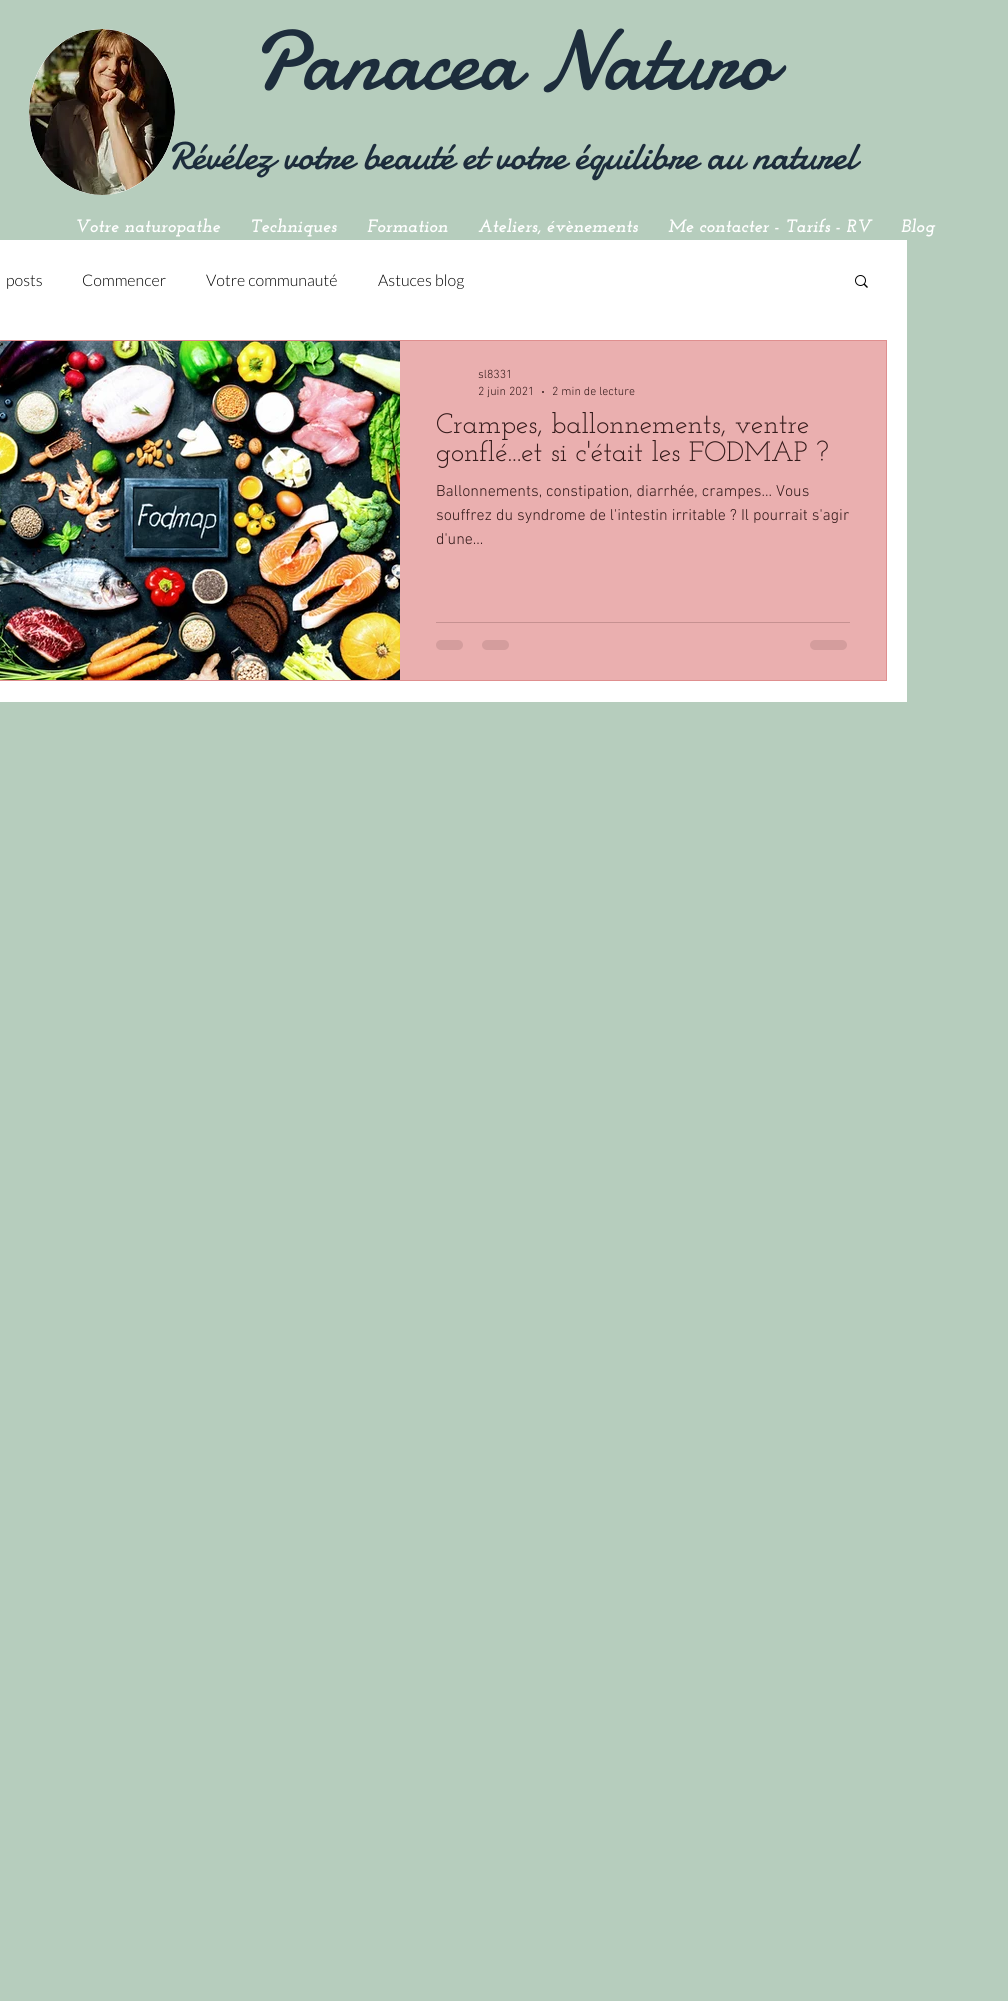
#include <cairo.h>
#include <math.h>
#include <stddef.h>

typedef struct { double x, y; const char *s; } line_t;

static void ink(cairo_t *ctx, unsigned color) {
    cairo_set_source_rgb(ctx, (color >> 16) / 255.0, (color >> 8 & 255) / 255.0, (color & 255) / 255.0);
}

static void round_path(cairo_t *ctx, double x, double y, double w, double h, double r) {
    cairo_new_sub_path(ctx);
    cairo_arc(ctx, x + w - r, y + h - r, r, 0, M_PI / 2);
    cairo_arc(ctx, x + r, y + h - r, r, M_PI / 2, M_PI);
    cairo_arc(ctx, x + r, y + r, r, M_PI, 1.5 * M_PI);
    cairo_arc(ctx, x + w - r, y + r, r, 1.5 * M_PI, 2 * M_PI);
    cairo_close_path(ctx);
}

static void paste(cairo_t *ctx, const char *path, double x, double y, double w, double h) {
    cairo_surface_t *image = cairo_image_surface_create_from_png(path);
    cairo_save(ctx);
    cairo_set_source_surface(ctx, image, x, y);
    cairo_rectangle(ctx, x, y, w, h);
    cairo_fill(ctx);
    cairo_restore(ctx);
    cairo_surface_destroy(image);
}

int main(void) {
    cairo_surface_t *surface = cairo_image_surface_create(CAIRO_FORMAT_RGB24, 1008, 2001);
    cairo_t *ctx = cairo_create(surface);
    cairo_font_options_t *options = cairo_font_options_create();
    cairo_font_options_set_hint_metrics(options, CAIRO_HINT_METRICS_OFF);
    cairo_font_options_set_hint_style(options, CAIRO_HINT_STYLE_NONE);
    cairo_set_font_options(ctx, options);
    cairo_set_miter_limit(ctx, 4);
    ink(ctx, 0xB6CDBD);
    cairo_paint(ctx);
    cairo_select_font_face(ctx, "Damion", CAIRO_FONT_SLANT_NORMAL, CAIRO_FONT_WEIGHT_NORMAL);
    cairo_set_font_size(ctx, 39);
    ink(ctx, 0x1D2D3C);
    cairo_move_to(ctx, 169, 169);
    cairo_show_text(ctx, "Révélez votre beauté et votre équilibre au naturel");
    ink(ctx, 0xFFFFFF);
    cairo_new_path(ctx);
    cairo_move_to(ctx, 102, 29);
    cairo_curve_to(ctx, 142.5, 29, 175, 66, 175, 112);
    cairo_curve_to(ctx, 175, 158, 142.5, 195, 102, 195);
    cairo_curve_to(ctx, 61.5, 195, 29, 158, 29, 112);
    cairo_curve_to(ctx, 29, 66, 61.5, 29, 102, 29);
    cairo_close_path(ctx);
    cairo_fill(ctx);
    paste(ctx, "media/1.png", 29, 29, 146, 166);
    cairo_set_font_size(ctx, 85);
    ink(ctx, 0x1D2D3C);
    cairo_move_to(ctx, 252, 89);
    cairo_show_text(ctx, "Panacea Naturo");
    cairo_select_font_face(ctx, "Josefin Slab", CAIRO_FONT_SLANT_ITALIC, CAIRO_FONT_WEIGHT_BOLD);
    cairo_set_font_size(ctx, 18);
    ink(ctx, 0xFFFFFF);
    {
        static const line_t items[] = {
            {75, 232, "Votre naturopathe"},
            {250, 232, "Techniques"},
            {367, 232, "Formation"},
            {478, 232, "Ateliers, évènements"},
            {668, 232, "Me contacter - Tarifs - RV"},
            {901, 232, "Blog"},
        };
        for (size_t i = 0; i < sizeof items / sizeof *items; i++) {
            cairo_move_to(ctx, items[i].x, items[i].y);
            cairo_show_text(ctx, items[i].s);
        }
    }
    cairo_rectangle(ctx, 0, 240, 907, 462);
    cairo_fill(ctx);
    cairo_select_font_face(ctx, "Lato Light", CAIRO_FONT_SLANT_NORMAL, CAIRO_FONT_WEIGHT_NORMAL);
    cairo_set_font_size(ctx, 16);
    ink(ctx, 0x000000);
    {
        static const line_t items[] = {
            {6, 286, "posts"},
            {82, 286, "Commencer"},
            {206, 286, "Votre communauté"},
            {378, 286, "Astuces blog"},
        };
        for (size_t i = 0; i < sizeof items / sizeof *items; i++) {
            cairo_move_to(ctx, items[i].x, items[i].y);
            cairo_show_text(ctx, items[i].s);
        }
    }
    paste(ctx, "media/2.png", 855, 275, 13, 13);
    cairo_rectangle(ctx, -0.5, 340.5, 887, 340);
    ink(ctx, 0xDF8F8F);
    cairo_set_line_width(ctx, 1);
    cairo_stroke(ctx);
    paste(ctx, "media/3.png", 0, 341, 400, 339);
    ink(ctx, 0xEAAFAF);
    cairo_rectangle(ctx, 400, 341, 486, 339);
    cairo_fill(ctx);
    cairo_select_font_face(ctx, "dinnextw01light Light", CAIRO_FONT_SLANT_NORMAL, CAIRO_FONT_WEIGHT_NORMAL);
    cairo_set_font_size(ctx, 12);
    ink(ctx, 0x351B1B);
    cairo_move_to(ctx, 478, 378);
    cairo_show_text(ctx, "sl8331");
    cairo_move_to(ctx, 478, 395);
    cairo_show_text(ctx, "2 juin 2021");
    cairo_new_path(ctx);
    cairo_arc(ctx, 543, 392, 1, 0, 2 * M_PI);
    cairo_fill(ctx);
    cairo_move_to(ctx, 552, 395);
    cairo_show_text(ctx, "2 min de lecture");
    cairo_select_font_face(ctx, "Josefin Slab", CAIRO_FONT_SLANT_NORMAL, CAIRO_FONT_WEIGHT_NORMAL);
    cairo_set_font_size(ctx, 28);
    cairo_move_to(ctx, 436, 433);
    cairo_show_text(ctx, "Crampes, ballonnements, ventre");
    cairo_move_to(ctx, 436, 461);
    cairo_show_text(ctx, "gonflé...et si c'était les FODMAP ?");
    cairo_select_font_face(ctx, "dinnextw01light Light", CAIRO_FONT_SLANT_NORMAL, CAIRO_FONT_WEIGHT_NORMAL);
    cairo_set_font_size(ctx, 16);
    {
        static const line_t items[] = {
            {436, 496, "Ballonnements, constipation, diarrhée, crampes... Vous"},
            {436, 520, "souffrez du syndrome de l'intestin irritable ? Il pourrait s'agir"},
            {436, 544, "d'une..."},
        };
        for (size_t i = 0; i < sizeof items / sizeof *items; i++) {
            cairo_move_to(ctx, items[i].x, items[i].y);
            cairo_show_text(ctx, items[i].s);
        }
    }
    ink(ctx, 0xC69191);
    cairo_rectangle(ctx, 436, 622, 414, 1);
    cairo_fill(ctx);
    ink(ctx, 0xD49D9D);
    round_path(ctx, 436, 640, 27, 10, 5);
    cairo_fill(ctx);
    round_path(ctx, 482, 640, 27, 10, 5);
    cairo_fill(ctx);
    round_path(ctx, 810, 640, 37, 10, 5);
    cairo_fill(ctx);
    cairo_surface_write_to_png(surface, "image.png");
    cairo_font_options_destroy(options);
    cairo_destroy(ctx);
    cairo_surface_destroy(surface);
    return 0;
}
